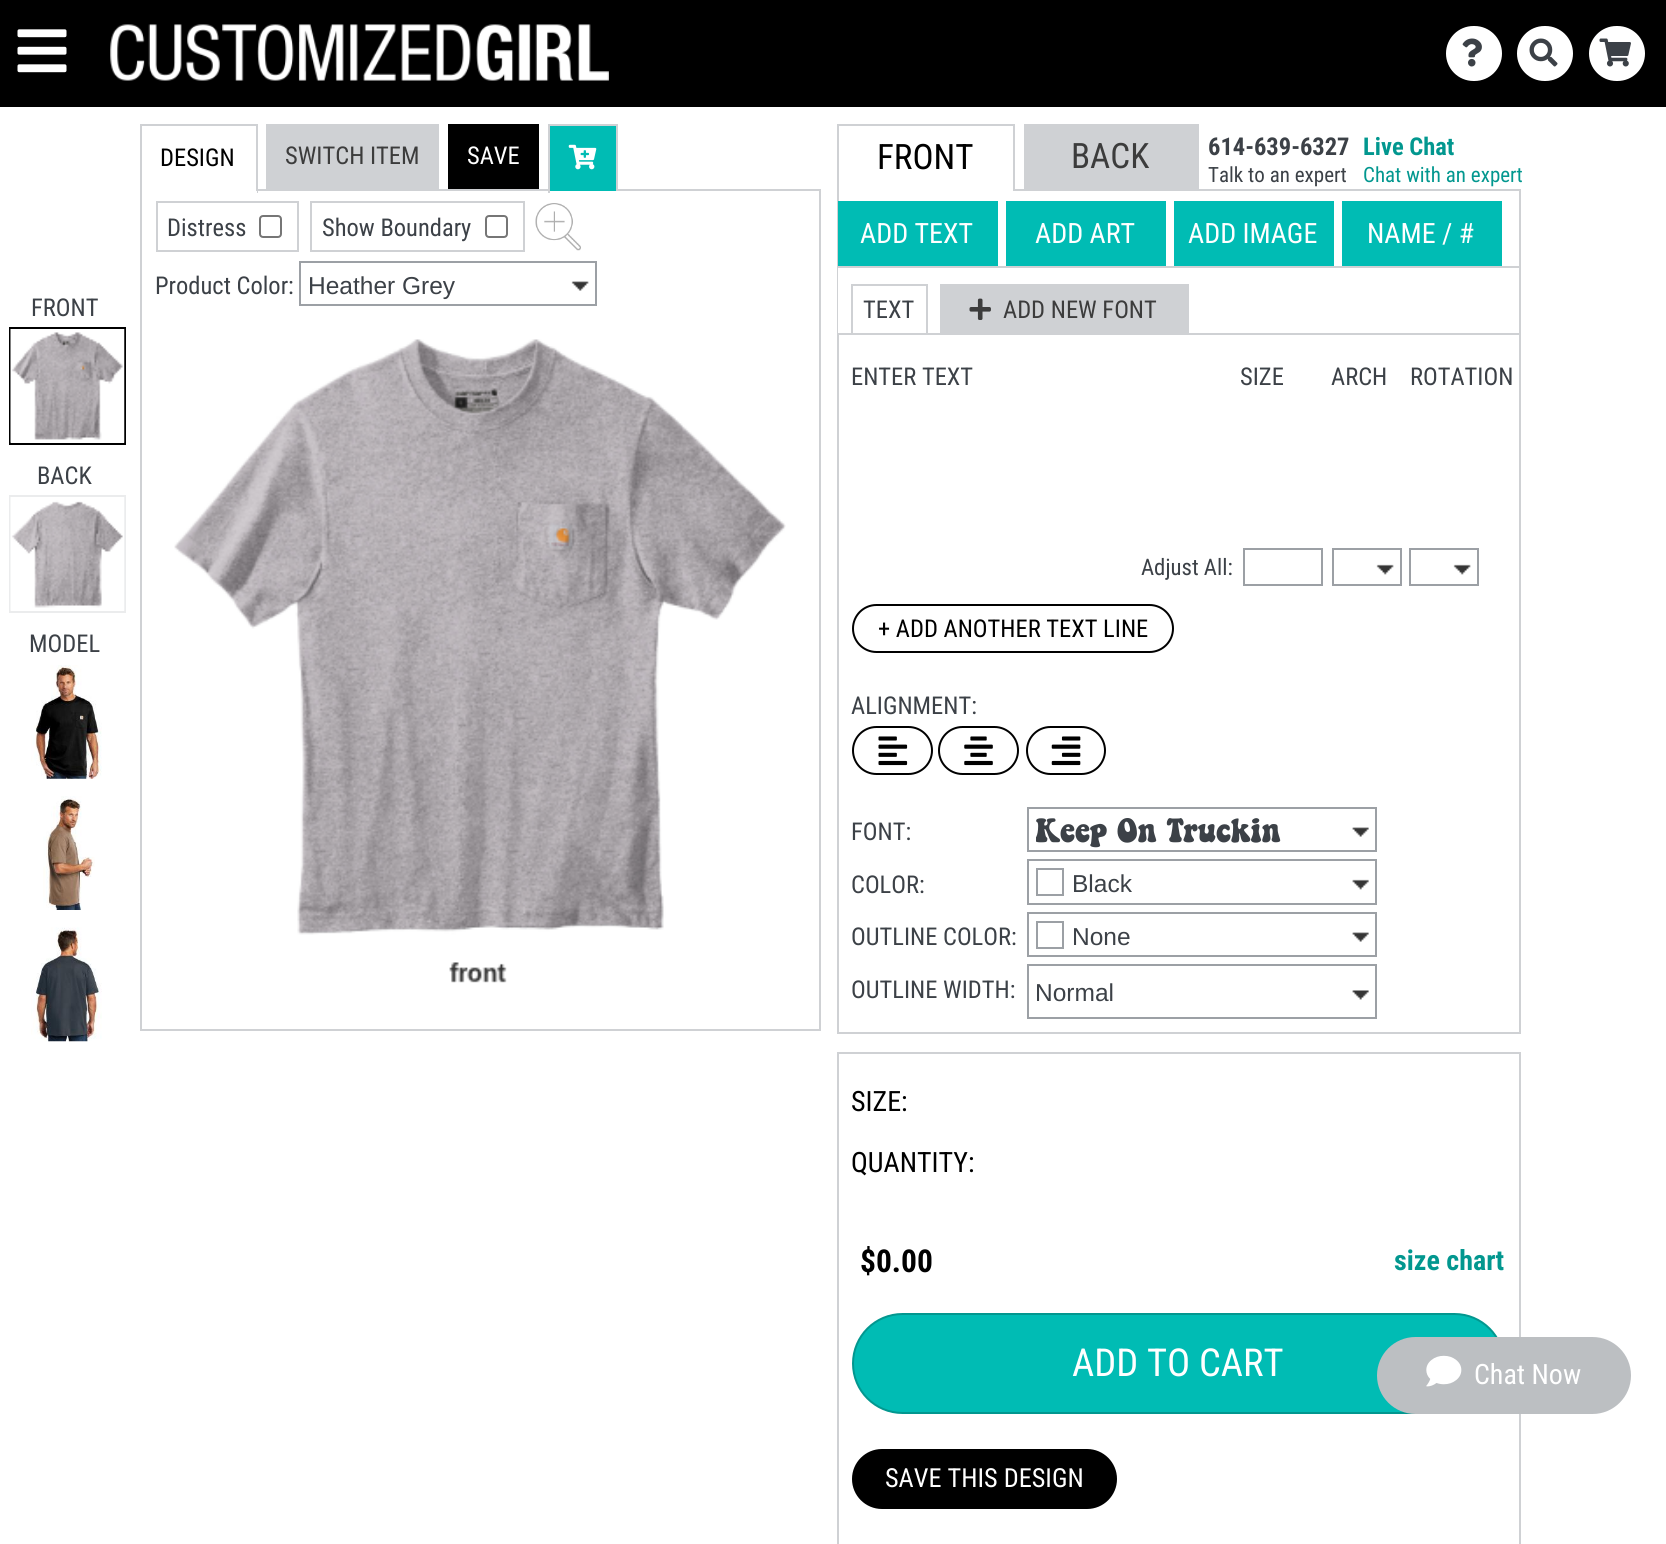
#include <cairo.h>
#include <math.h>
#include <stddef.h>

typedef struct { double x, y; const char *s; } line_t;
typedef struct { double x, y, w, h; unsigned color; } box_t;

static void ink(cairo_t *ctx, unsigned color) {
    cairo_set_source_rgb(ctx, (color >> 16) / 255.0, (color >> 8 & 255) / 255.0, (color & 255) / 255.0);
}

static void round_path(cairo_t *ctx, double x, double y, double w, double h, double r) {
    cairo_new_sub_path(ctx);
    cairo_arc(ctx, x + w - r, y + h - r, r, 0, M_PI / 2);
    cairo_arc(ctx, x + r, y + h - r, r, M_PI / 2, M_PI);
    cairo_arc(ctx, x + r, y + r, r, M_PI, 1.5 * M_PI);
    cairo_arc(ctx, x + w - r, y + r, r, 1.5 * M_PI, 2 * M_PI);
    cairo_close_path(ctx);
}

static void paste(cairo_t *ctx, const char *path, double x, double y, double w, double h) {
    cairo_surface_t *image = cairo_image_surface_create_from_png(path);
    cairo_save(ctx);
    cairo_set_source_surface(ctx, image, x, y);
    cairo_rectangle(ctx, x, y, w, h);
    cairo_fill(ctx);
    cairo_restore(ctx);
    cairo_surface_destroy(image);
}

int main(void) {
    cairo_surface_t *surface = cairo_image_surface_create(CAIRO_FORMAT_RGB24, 1666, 1544);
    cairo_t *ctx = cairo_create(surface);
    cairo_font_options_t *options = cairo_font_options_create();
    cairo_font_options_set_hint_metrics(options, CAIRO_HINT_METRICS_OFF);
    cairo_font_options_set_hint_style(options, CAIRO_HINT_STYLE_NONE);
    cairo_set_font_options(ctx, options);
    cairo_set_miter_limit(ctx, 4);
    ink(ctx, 0xFFFFFF);
    cairo_paint(ctx);
    ink(ctx, 0x000000);
    cairo_rectangle(ctx, 0, 0, 1666, 107);
    cairo_fill(ctx);
    paste(ctx, "media/1.png", 17, 29, 50, 44);
    paste(ctx, "media/2.png", 110, 24, 499, 57);
    ink(ctx, 0xFFFFFF);
    round_path(ctx, 1446, 26, 56, 55, 27.5);
    cairo_fill(ctx);
    paste(ctx, "media/3.png", 1462, 38, 20, 29);
    round_path(ctx, 1517, 26, 56, 55, 27.5);
    cairo_fill(ctx);
    paste(ctx, "media/4.png", 1529, 38, 29, 29);
    round_path(ctx, 1589, 26, 56, 55, 27.5);
    cairo_fill(ctx);
    paste(ctx, "media/5.png", 1599, 38, 32, 29);
    cairo_rectangle(ctx, 141, 190, 679, 840);
    ink(ctx, 0xCFD1D4);
    cairo_stroke(ctx);
    {
        static const box_t items[] = {
            {142, 189, 114, 2, 0xFFFFFF},
            {140, 124, 117, 2, 0xCFD1D4},
            {256, 124, 2, 69, 0xCFD1D4},
            {140, 191, 117, 2, 0xFFFFFF},
            {140, 124, 2, 69, 0xCFD1D4},
        };
        for (size_t i = 0; i < sizeof items / sizeof *items; i++) {
            ink(ctx, items[i].color);
            cairo_rectangle(ctx, items[i].x, items[i].y, items[i].w, items[i].h);
            cairo_fill(ctx);
        }
    }
    cairo_select_font_face(ctx, "Roboto Condensed", CAIRO_FONT_SLANT_NORMAL, CAIRO_FONT_WEIGHT_NORMAL);
    cairo_set_font_size(ctx, 24.5);
    ink(ctx, 0x000000);
    cairo_move_to(ctx, 160, 166);
    cairo_show_text(ctx, "DESIGN");
    ink(ctx, 0xCFD1D4);
    cairo_rectangle(ctx, 266, 124, 173, 65);
    cairo_fill(ctx);
    ink(ctx, 0x3C3C3C);
    cairo_move_to(ctx, 285, 164);
    cairo_show_text(ctx, "SWITCH ITEM");
    ink(ctx, 0x000000);
    cairo_rectangle(ctx, 448, 124, 91, 65);
    cairo_fill(ctx);
    ink(ctx, 0xFFFFFF);
    cairo_move_to(ctx, 467, 164);
    cairo_show_text(ctx, "SAVE");
    {
        static const box_t items[] = {
            {550, 126, 66, 65, 0x00BCB4},
            {548, 124, 70, 2, 0xCFD1D4},
            {616, 124, 2, 69, 0xCFD1D4},
            {616, 191, 2, 2, 0xFFFFFF},
            {548, 124, 2, 69, 0xCFD1D4},
        };
        for (size_t i = 0; i < sizeof items / sizeof *items; i++) {
            ink(ctx, items[i].color);
            cairo_rectangle(ctx, items[i].x, items[i].y, items[i].w, items[i].h);
            cairo_fill(ctx);
        }
    }
    paste(ctx, "media/6.png", 568, 144, 29, 26);
    cairo_rectangle(ctx, 157, 202, 141, 49);
    cairo_stroke(ctx);
    ink(ctx, 0x3C4147);
    cairo_move_to(ctx, 167, 236);
    cairo_show_text(ctx, "Distress");
    round_path(ctx, 260, 216, 21, 21, 3);
    ink(ctx, 0x767676);
    cairo_stroke(ctx);
    cairo_rectangle(ctx, 311, 202, 213, 49);
    ink(ctx, 0xCFD1D4);
    cairo_stroke(ctx);
    ink(ctx, 0x3C4147);
    cairo_move_to(ctx, 322, 236);
    cairo_show_text(ctx, "Show Boundary");
    round_path(ctx, 486, 216, 21, 21, 3);
    ink(ctx, 0x767676);
    cairo_stroke(ctx);
    paste(ctx, "media/7.png", 535, 203, 46, 48);
    ink(ctx, 0x3C4147);
    cairo_move_to(ctx, 155, 294);
    cairo_show_text(ctx, "Product Color:");
    paste(ctx, "media/8.png", 571, 281, 18, 10);
    cairo_rectangle(ctx, 300, 262, 296, 43);
    ink(ctx, 0x9CA0A5);
    cairo_stroke(ctx);
    cairo_select_font_face(ctx, "Liberation Sans", CAIRO_FONT_SLANT_NORMAL, CAIRO_FONT_WEIGHT_NORMAL);
    ink(ctx, 0x3C4147);
    cairo_move_to(ctx, 308, 294);
    cairo_show_text(ctx, "Heather Grey");
    paste(ctx, "media/9.png", 174, 339, 612, 644);
    {
        static const box_t items[] = {
            {837, 124, 178, 2, 0xCFD1D4},
            {1013, 124, 2, 69, 0xCFD1D4},
            {837, 189, 2, 77, 0xCFD1D4},
            {837, 191, 178, 2, 0xFFFFFF},
            {837, 124, 2, 69, 0xCFD1D4},
        };
        for (size_t i = 0; i < sizeof items / sizeof *items; i++) {
            ink(ctx, items[i].color);
            cairo_rectangle(ctx, items[i].x, items[i].y, items[i].w, items[i].h);
            cairo_fill(ctx);
        }
    }
    cairo_select_font_face(ctx, "Roboto Condensed", CAIRO_FONT_SLANT_NORMAL, CAIRO_FONT_WEIGHT_NORMAL);
    cairo_set_font_size(ctx, 35);
    ink(ctx, 0x000000);
    cairo_move_to(ctx, 877, 169);
    cairo_show_text(ctx, "FRONT");
    ink(ctx, 0xCFD1D4);
    cairo_rectangle(ctx, 1024, 124, 175, 65);
    cairo_fill(ctx);
    ink(ctx, 0x3C3C3C);
    cairo_move_to(ctx, 1071, 168);
    cairo_show_text(ctx, "BACK");
    cairo_select_font_face(ctx, "Roboto Condensed", CAIRO_FONT_SLANT_NORMAL, CAIRO_FONT_WEIGHT_BOLD);
    cairo_set_font_size(ctx, 24.5);
    ink(ctx, 0x3C4147);
    cairo_move_to(ctx, 1208, 155);
    cairo_show_text(ctx, "614-639-6327");
    cairo_select_font_face(ctx, "Roboto Condensed", CAIRO_FONT_SLANT_NORMAL, CAIRO_FONT_WEIGHT_NORMAL);
    cairo_set_font_size(ctx, 21);
    cairo_move_to(ctx, 1208, 182);
    cairo_show_text(ctx, "Talk to an expert");
    cairo_select_font_face(ctx, "Roboto Condensed", CAIRO_FONT_SLANT_NORMAL, CAIRO_FONT_WEIGHT_BOLD);
    cairo_set_font_size(ctx, 24.5);
    ink(ctx, 0x02978F);
    cairo_move_to(ctx, 1363, 155);
    cairo_show_text(ctx, "Live Chat");
    cairo_select_font_face(ctx, "Roboto Condensed", CAIRO_FONT_SLANT_NORMAL, CAIRO_FONT_WEIGHT_NORMAL);
    cairo_set_font_size(ctx, 21);
    cairo_move_to(ctx, 1363, 182);
    cairo_show_text(ctx, "Chat with an expert");
    {
        static const box_t items[] = {
            {1015, 189, 506, 2, 0xCFD1D4},
            {1519, 189, 2, 77, 0xCFD1D4},
            {838, 201, 160, 65, 0x00BCB4},
        };
        for (size_t i = 0; i < sizeof items / sizeof *items; i++) {
            ink(ctx, items[i].color);
            cairo_rectangle(ctx, items[i].x, items[i].y, items[i].w, items[i].h);
            cairo_fill(ctx);
        }
    }
    cairo_set_font_size(ctx, 28);
    ink(ctx, 0xFFFFFF);
    cairo_move_to(ctx, 860, 243);
    cairo_show_text(ctx, "ADD TEXT");
    ink(ctx, 0x00BCB4);
    cairo_rectangle(ctx, 1006, 201, 160, 65);
    cairo_fill(ctx);
    ink(ctx, 0xFFFFFF);
    cairo_move_to(ctx, 1035, 243);
    cairo_show_text(ctx, "ADD ART");
    ink(ctx, 0x00BCB4);
    cairo_rectangle(ctx, 1174, 201, 160, 65);
    cairo_fill(ctx);
    ink(ctx, 0xFFFFFF);
    cairo_move_to(ctx, 1188, 243);
    cairo_show_text(ctx, "ADD IMAGE");
    ink(ctx, 0x00BCB4);
    cairo_rectangle(ctx, 1342, 201, 160, 65);
    cairo_fill(ctx);
    ink(ctx, 0xFFFFFF);
    cairo_move_to(ctx, 1367, 243);
    cairo_show_text(ctx, "NAME / #");
    cairo_rectangle(ctx, 838, 267, 682, 766);
    ink(ctx, 0xCFD1D4);
    cairo_stroke(ctx);
    {
        static const box_t items[] = {
            {838, 268, 1, 65, 0xFFFFFF},
            {838, 333, 681, 2, 0xCFD1D4},
            {851, 284, 77, 2, 0xCFD1D4},
            {926, 284, 2, 50, 0xCFD1D4},
            {851, 284, 2, 50, 0xCFD1D4},
        };
        for (size_t i = 0; i < sizeof items / sizeof *items; i++) {
            ink(ctx, items[i].color);
            cairo_rectangle(ctx, items[i].x, items[i].y, items[i].w, items[i].h);
            cairo_fill(ctx);
        }
    }
    cairo_set_font_size(ctx, 24.5);
    ink(ctx, 0x3C4147);
    cairo_move_to(ctx, 863, 318);
    cairo_show_text(ctx, "TEXT");
    ink(ctx, 0xCFD1D4);
    cairo_rectangle(ctx, 940, 284, 247, 49);
    cairo_fill(ctx);
    cairo_rectangle(ctx, 1187, 284, 2, 50);
    cairo_fill(ctx);
    paste(ctx, "media/10.png", 969, 298, 22, 22);
    ink(ctx, 0x3C3C3C);
    cairo_move_to(ctx, 1003, 318);
    cairo_show_text(ctx, "ADD NEW FONT");
    ink(ctx, 0x3C4147);
    {
        static const line_t items[] = {
            {851, 385, "ENTER TEXT"},
            {1240, 385, "SIZE"},
            {1331, 385, "ARCH"},
            {1410, 385, "ROTATION"},
        };
        for (size_t i = 0; i < sizeof items / sizeof *items; i++) {
            cairo_move_to(ctx, items[i].x, items[i].y);
            cairo_show_text(ctx, items[i].s);
        }
    }
    cairo_set_font_size(ctx, 22.75);
    cairo_move_to(ctx, 1141, 575);
    cairo_show_text(ctx, "Adjust All:");
    cairo_rectangle(ctx, 1244, 549, 78, 36);
    ink(ctx, 0x9CA0A5);
    cairo_stroke(ctx);
    paste(ctx, "media/11.png", 1376, 564, 18, 11);
    cairo_rectangle(ctx, 1333, 549, 68, 36);
    cairo_stroke(ctx);
    paste(ctx, "media/11.png", 1453, 564, 18, 11);
    cairo_rectangle(ctx, 1410, 549, 68, 36);
    cairo_stroke(ctx);
    round_path(ctx, 853, 605, 320, 47, 23.5);
    ink(ctx, 0x000000);
    cairo_stroke(ctx);
    cairo_set_font_size(ctx, 24.5);
    cairo_move_to(ctx, 878, 637);
    cairo_show_text(ctx, "+ ADD ANOTHER TEXT LINE");
    ink(ctx, 0x3C4147);
    cairo_move_to(ctx, 851, 714);
    cairo_show_text(ctx, "ALIGNMENT:");
    round_path(ctx, 853, 727, 79, 47, 23.5);
    ink(ctx, 0x000000);
    cairo_stroke(ctx);
    paste(ctx, "media/12.png", 878, 736, 30, 30);
    round_path(ctx, 939, 727, 79, 47, 23.5);
    cairo_stroke(ctx);
    paste(ctx, "media/13.png", 964, 736, 29, 30);
    round_path(ctx, 1027, 727, 78, 47, 23.5);
    cairo_stroke(ctx);
    paste(ctx, "media/14.png", 1051, 736, 30, 30);
    ink(ctx, 0x3C4147);
    cairo_move_to(ctx, 851, 840);
    cairo_show_text(ctx, "FONT:");
    paste(ctx, "media/15.png", 1352, 827, 17, 10);
    cairo_rectangle(ctx, 1028, 808, 348, 43);
    ink(ctx, 0x9CA0A5);
    cairo_stroke(ctx);
    cairo_save(ctx);
    cairo_rectangle(ctx, 1036, 810, 340, 39);
    cairo_clip(ctx);
    cairo_select_font_face(ctx, "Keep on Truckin", CAIRO_FONT_SLANT_NORMAL, CAIRO_FONT_WEIGHT_NORMAL);
    cairo_set_font_size(ctx, 31.5);
    ink(ctx, 0x3C4147);
    cairo_move_to(ctx, 1035, 842);
    cairo_show_text(ctx, "Keep On Truckin");
    cairo_restore(ctx);
    ink(ctx, 0x3C4147);
    cairo_move_to(ctx, 851, 893);
    cairo_show_text(ctx, "COLOR:");
    paste(ctx, "media/16.png", 1352, 879, 17, 11);
    cairo_rectangle(ctx, 1028, 860, 348, 44);
    ink(ctx, 0x9CA0A5);
    cairo_stroke(ctx);
    cairo_rectangle(ctx, 1037, 869, 26, 26);
    cairo_stroke(ctx);
    cairo_select_font_face(ctx, "Liberation Sans", CAIRO_FONT_SLANT_NORMAL, CAIRO_FONT_WEIGHT_NORMAL);
    ink(ctx, 0x3C4147);
    cairo_move_to(ctx, 1072, 892);
    cairo_show_text(ctx, "Black");
    cairo_select_font_face(ctx, "Roboto Condensed", CAIRO_FONT_SLANT_NORMAL, CAIRO_FONT_WEIGHT_NORMAL);
    cairo_move_to(ctx, 851, 945);
    cairo_show_text(ctx, "OUTLINE COLOR:");
    paste(ctx, "media/15.png", 1352, 932, 17, 10);
    cairo_rectangle(ctx, 1028, 913, 348, 43);
    ink(ctx, 0x9CA0A5);
    cairo_stroke(ctx);
    cairo_rectangle(ctx, 1037, 922, 26, 26);
    cairo_stroke(ctx);
    cairo_select_font_face(ctx, "Liberation Sans", CAIRO_FONT_SLANT_NORMAL, CAIRO_FONT_WEIGHT_NORMAL);
    ink(ctx, 0x3C4147);
    cairo_move_to(ctx, 1072, 945);
    cairo_show_text(ctx, "None");
    cairo_select_font_face(ctx, "Roboto Condensed", CAIRO_FONT_SLANT_NORMAL, CAIRO_FONT_WEIGHT_NORMAL);
    cairo_move_to(ctx, 851, 998);
    cairo_show_text(ctx, "OUTLINE WIDTH:");
    paste(ctx, "media/17.png", 1352, 990, 17, 10);
    cairo_rectangle(ctx, 1028, 965, 348, 53);
    ink(ctx, 0x9CA0A5);
    cairo_stroke(ctx);
    cairo_select_font_face(ctx, "Liberation Sans", CAIRO_FONT_SLANT_NORMAL, CAIRO_FONT_WEIGHT_NORMAL);
    ink(ctx, 0x3C4147);
    cairo_move_to(ctx, 1035, 1001);
    cairo_show_text(ctx, "Normal");
    cairo_rectangle(ctx, 838, 1053, 682, 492);
    ink(ctx, 0xCFD1D4);
    cairo_stroke(ctx);
    cairo_select_font_face(ctx, "Roboto Condensed", CAIRO_FONT_SLANT_NORMAL, CAIRO_FONT_WEIGHT_NORMAL);
    cairo_set_font_size(ctx, 28);
    ink(ctx, 0x000000);
    cairo_move_to(ctx, 851, 1111);
    cairo_show_text(ctx, "SIZE:");
    cairo_move_to(ctx, 851, 1172);
    cairo_show_text(ctx, "QUANTITY:");
    cairo_select_font_face(ctx, "Roboto Condensed", CAIRO_FONT_SLANT_NORMAL, CAIRO_FONT_WEIGHT_BOLD);
    cairo_set_font_size(ctx, 31.5);
    cairo_move_to(ctx, 860, 1272);
    cairo_show_text(ctx, "$0.00");
    cairo_set_font_size(ctx, 28);
    ink(ctx, 0x02978F);
    cairo_move_to(ctx, 1394, 1270);
    cairo_show_text(ctx, "size chart");
    ink(ctx, 0x00BCB4);
    round_path(ctx, 853, 1314, 651, 99, 49.5);
    cairo_fill_preserve(ctx);
    ink(ctx, 0x02978F);
    cairo_stroke(ctx);
    cairo_select_font_face(ctx, "Roboto Condensed", CAIRO_FONT_SLANT_NORMAL, CAIRO_FONT_WEIGHT_NORMAL);
    cairo_set_font_size(ctx, 38.5);
    ink(ctx, 0xFFFFFF);
    cairo_move_to(ctx, 1072, 1376);
    cairo_show_text(ctx, "ADD TO CART");
    ink(ctx, 0x000000);
    round_path(ctx, 853, 1450, 263, 58, 29);
    cairo_fill_preserve(ctx);
    cairo_stroke(ctx);
    cairo_set_font_size(ctx, 26.25);
    ink(ctx, 0xFFFFFF);
    cairo_move_to(ctx, 885, 1487);
    cairo_show_text(ctx, "SAVE THIS DESIGN");
    cairo_set_font_size(ctx, 24.5);
    ink(ctx, 0x3C4147);
    cairo_move_to(ctx, 31, 316);
    cairo_show_text(ctx, "FRONT");
    cairo_rectangle(ctx, 10, 328, 115, 116);
    ink(ctx, 0x000000);
    cairo_stroke(ctx);
    paste(ctx, "media/18.png", 10, 329, 115, 114);
    ink(ctx, 0x3C4147);
    cairo_move_to(ctx, 37, 484);
    cairo_show_text(ctx, "BACK");
    cairo_rectangle(ctx, 10, 496, 115, 116);
    ink(ctx, 0xEBECED);
    cairo_stroke(ctx);
    paste(ctx, "media/19.png", 10, 497, 115, 114);
    ink(ctx, 0x3C4147);
    cairo_move_to(ctx, 29, 652);
    cairo_show_text(ctx, "MODEL");
    paste(ctx, "media/20.png", 31, 665, 71, 114);
    paste(ctx, "media/21.png", 43, 796, 52, 114);
    paste(ctx, "media/22.png", 31, 927, 71, 115);
    ink(ctx, 0xBCBFC2);
    round_path(ctx, 1377, 1337, 254, 77, 38.5);
    cairo_fill(ctx);
    paste(ctx, "media/23.png", 1426, 1355, 36, 32);
    cairo_set_font_size(ctx, 28);
    ink(ctx, 0xFFFFFF);
    cairo_move_to(ctx, 1474, 1384);
    cairo_show_text(ctx, "Chat Now");
    cairo_surface_write_to_png(surface, "image.png");
    cairo_font_options_destroy(options);
    cairo_destroy(ctx);
    cairo_surface_destroy(surface);
    return 0;
}
